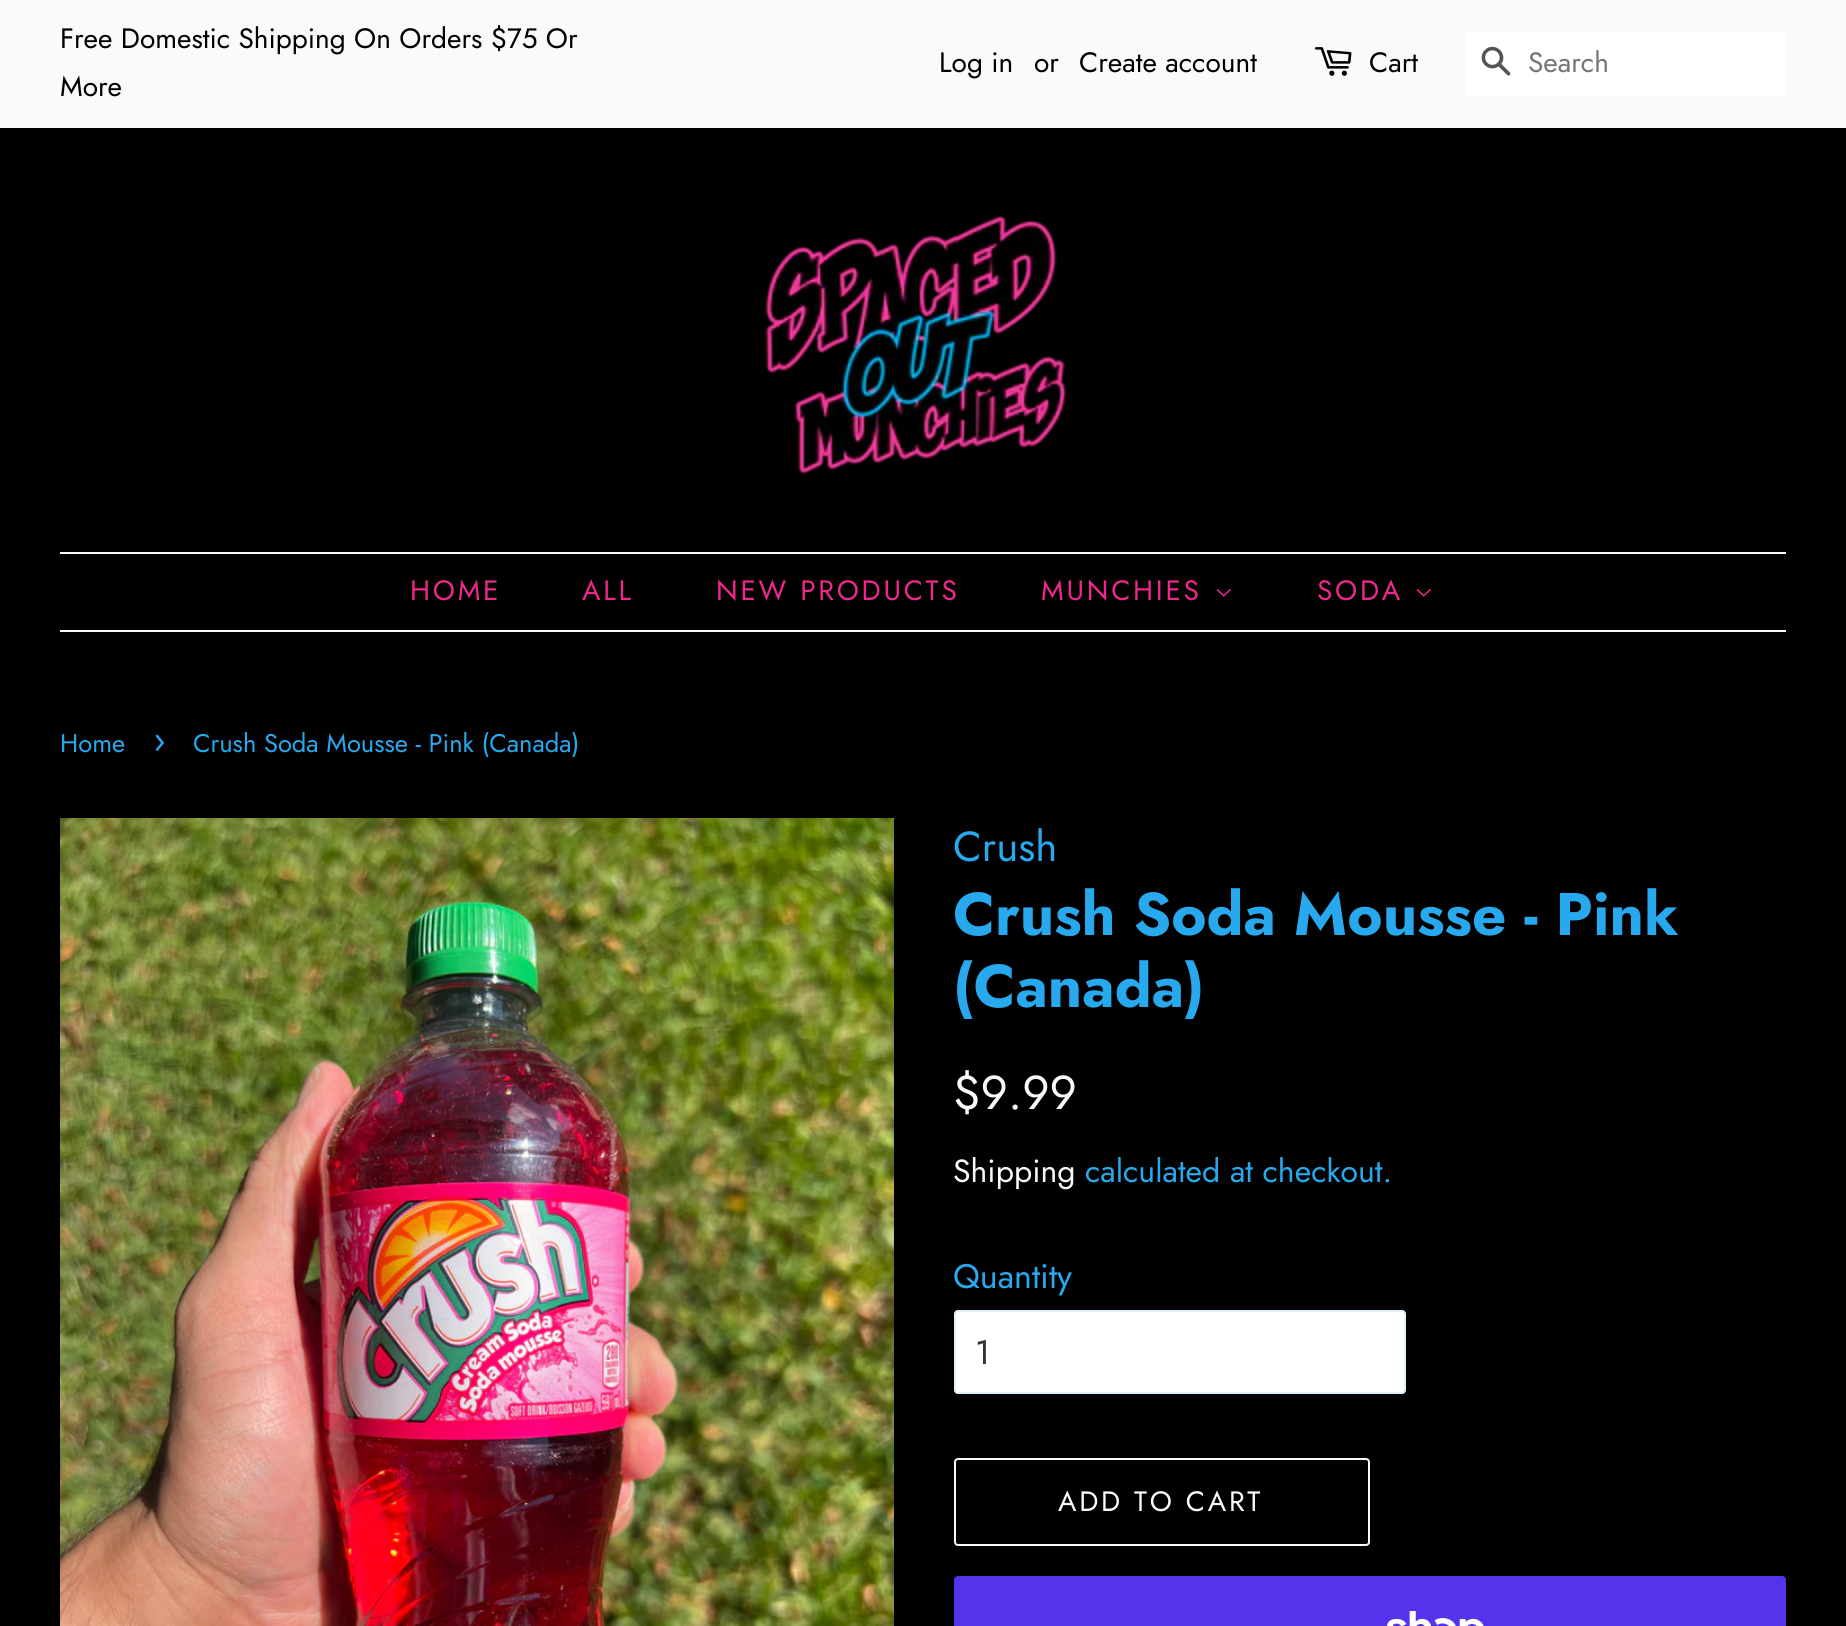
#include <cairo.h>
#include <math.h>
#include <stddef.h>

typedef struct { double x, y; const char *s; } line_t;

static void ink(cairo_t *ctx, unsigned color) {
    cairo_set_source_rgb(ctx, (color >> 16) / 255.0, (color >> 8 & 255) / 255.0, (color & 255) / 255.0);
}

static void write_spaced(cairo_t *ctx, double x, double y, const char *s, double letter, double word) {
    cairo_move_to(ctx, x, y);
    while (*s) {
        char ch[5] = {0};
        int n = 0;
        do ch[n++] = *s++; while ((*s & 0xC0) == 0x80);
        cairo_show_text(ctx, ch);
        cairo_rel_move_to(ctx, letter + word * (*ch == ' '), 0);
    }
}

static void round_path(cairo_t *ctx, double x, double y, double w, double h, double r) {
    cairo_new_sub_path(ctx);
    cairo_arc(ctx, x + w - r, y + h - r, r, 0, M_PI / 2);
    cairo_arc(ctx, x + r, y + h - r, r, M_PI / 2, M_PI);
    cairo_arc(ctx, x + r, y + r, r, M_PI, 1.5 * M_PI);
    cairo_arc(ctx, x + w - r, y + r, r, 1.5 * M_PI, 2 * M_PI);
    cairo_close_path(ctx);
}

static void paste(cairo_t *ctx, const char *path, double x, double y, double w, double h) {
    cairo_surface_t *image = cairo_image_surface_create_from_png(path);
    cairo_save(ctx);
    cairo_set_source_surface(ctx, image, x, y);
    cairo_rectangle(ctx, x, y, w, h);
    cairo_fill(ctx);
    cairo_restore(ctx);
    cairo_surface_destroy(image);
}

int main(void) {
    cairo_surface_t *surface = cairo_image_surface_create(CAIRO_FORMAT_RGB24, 1846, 1626);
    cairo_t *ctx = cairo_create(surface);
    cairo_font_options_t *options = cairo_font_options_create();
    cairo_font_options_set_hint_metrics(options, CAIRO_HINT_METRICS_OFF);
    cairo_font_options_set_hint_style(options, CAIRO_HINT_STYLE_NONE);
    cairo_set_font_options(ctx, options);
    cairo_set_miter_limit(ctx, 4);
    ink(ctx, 0x000000);
    cairo_paint(ctx);
    ink(ctx, 0xFAFAFA);
    cairo_rectangle(ctx, 0, 0, 1846, 128);
    cairo_fill(ctx);
    cairo_select_font_face(ctx, "Jost", CAIRO_FONT_SLANT_NORMAL, CAIRO_FONT_WEIGHT_NORMAL);
    cairo_set_font_size(ctx, 28);
    ink(ctx, 0x000000);
    {
        static const line_t items[] = {
            {60, 48, "Free Domestic Shipping On Orders $75 Or"},
            {60, 96, "More"},
            {939, 72, "Log in"},
            {1034, 72, "or"},
            {1079, 72, "Create account"},
        };
        for (size_t i = 0; i < sizeof items / sizeof *items; i++) {
            cairo_move_to(ctx, items[i].x, items[i].y);
            cairo_show_text(ctx, items[i].s);
        }
    }
    paste(ctx, "media/1.png", 1314, 47, 38, 29);
    cairo_move_to(ctx, 1369, 72);
    cairo_show_text(ctx, "Cart");
    ink(ctx, 0xFFFFFF);
    round_path(ctx, 1466, 32, 320, 64, 4);
    cairo_fill(ctx);
    paste(ctx, "media/2.png", 1481, 46, 30, 30);
    ink(ctx, 0x757575);
    cairo_move_to(ctx, 1528, 72);
    cairo_show_text(ctx, "Search");
    paste(ctx, "media/3.png", 765, 215, 302, 260);
    ink(ctx, 0xFAFAFA);
    cairo_rectangle(ctx, 60, 552, 1726, 2);
    cairo_fill(ctx);
    cairo_rectangle(ctx, 60, 630, 1726, 2);
    cairo_fill(ctx);
    ink(ctx, 0xED288A);
    {
        static const line_t items[] = {
            {410, 600, "HOME"},
            {582, 600, "ALL"},
            {716, 600, "NEW PRODUCTS"},
            {1041, 600, "MUNCHIES"},
        };
        for (size_t i = 0; i < sizeof items / sizeof *items; i++) {
            write_spaced(ctx, items[i].x, items[i].y, items[i].s, 2.75, 0);
        }
    }
    paste(ctx, "media/4.png", 1216, 589, 15, 8);
    write_spaced(ctx, 1317, 600, "SODA", 2.75, 0);
    paste(ctx, "media/4.png", 1416, 589, 15, 8);
    cairo_set_font_size(ctx, 25.5);
    ink(ctx, 0x28A8ED);
    cairo_move_to(ctx, 60, 752);
    cairo_show_text(ctx, "Home");
    cairo_set_font_size(ctx, 36);
    cairo_move_to(ctx, 153, 752);
    cairo_show_text(ctx, "›");
    cairo_set_font_size(ctx, 25.5);
    cairo_move_to(ctx, 193, 752);
    cairo_show_text(ctx, "Crush Soda Mousse - Pink (Canada)");
    paste(ctx, "media/5.png", 60, 818, 834, 808);
    cairo_set_font_size(ctx, 42);
    cairo_move_to(ctx, 953, 861);
    cairo_show_text(ctx, "Crush");
    cairo_select_font_face(ctx, "Jost", CAIRO_FONT_SLANT_NORMAL, CAIRO_FONT_WEIGHT_BOLD);
    cairo_set_font_size(ctx, 60);
    cairo_move_to(ctx, 953, 935);
    cairo_show_text(ctx, "Crush Soda Mousse - Pink");
    cairo_move_to(ctx, 953, 1007);
    cairo_show_text(ctx, "(Canada)");
    cairo_select_font_face(ctx, "Jost", CAIRO_FONT_SLANT_NORMAL, CAIRO_FONT_WEIGHT_NORMAL);
    cairo_set_font_size(ctx, 47.5);
    ink(ctx, 0xFAFAFA);
    cairo_move_to(ctx, 953, 1109);
    cairo_show_text(ctx, "$9.99");
    cairo_set_font_size(ctx, 32);
    cairo_move_to(ctx, 953, 1182);
    cairo_show_text(ctx, "Shipping");
    ink(ctx, 0x28A8ED);
    cairo_move_to(ctx, 1085, 1182);
    cairo_show_text(ctx, "calculated at checkout.");
    cairo_set_font_size(ctx, 34);
    cairo_move_to(ctx, 953, 1288);
    cairo_show_text(ctx, "Quantity");
    ink(ctx, 0xFFFFFF);
    round_path(ctx, 954, 1310, 452, 84, 4);
    cairo_fill(ctx);
    round_path(ctx, 955, 1311, 450, 82, 3);
    cairo_set_source_rgba(ctx, 0.157, 0.659, 0.929, 0.15);
    cairo_stroke(ctx);
    ink(ctx, 0x333333);
    cairo_move_to(ctx, 975, 1364);
    cairo_show_text(ctx, "1");
    round_path(ctx, 955, 1459, 414, 86, 3);
    ink(ctx, 0xFAFAFA);
    cairo_stroke(ctx);
    cairo_set_font_size(ctx, 28);
    write_spaced(ctx, 1058, 1511, "ADD TO CART", 2.75, 0);
    ink(ctx, 0x5433EB);
    round_path(ctx, 954, 1576, 832, 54, 4);
    cairo_fill(ctx);
    paste(ctx, "media/6.png", 1387, 1611, 97, 15);
    cairo_surface_write_to_png(surface, "image.png");
    cairo_font_options_destroy(options);
    cairo_destroy(ctx);
    cairo_surface_destroy(surface);
    return 0;
}
